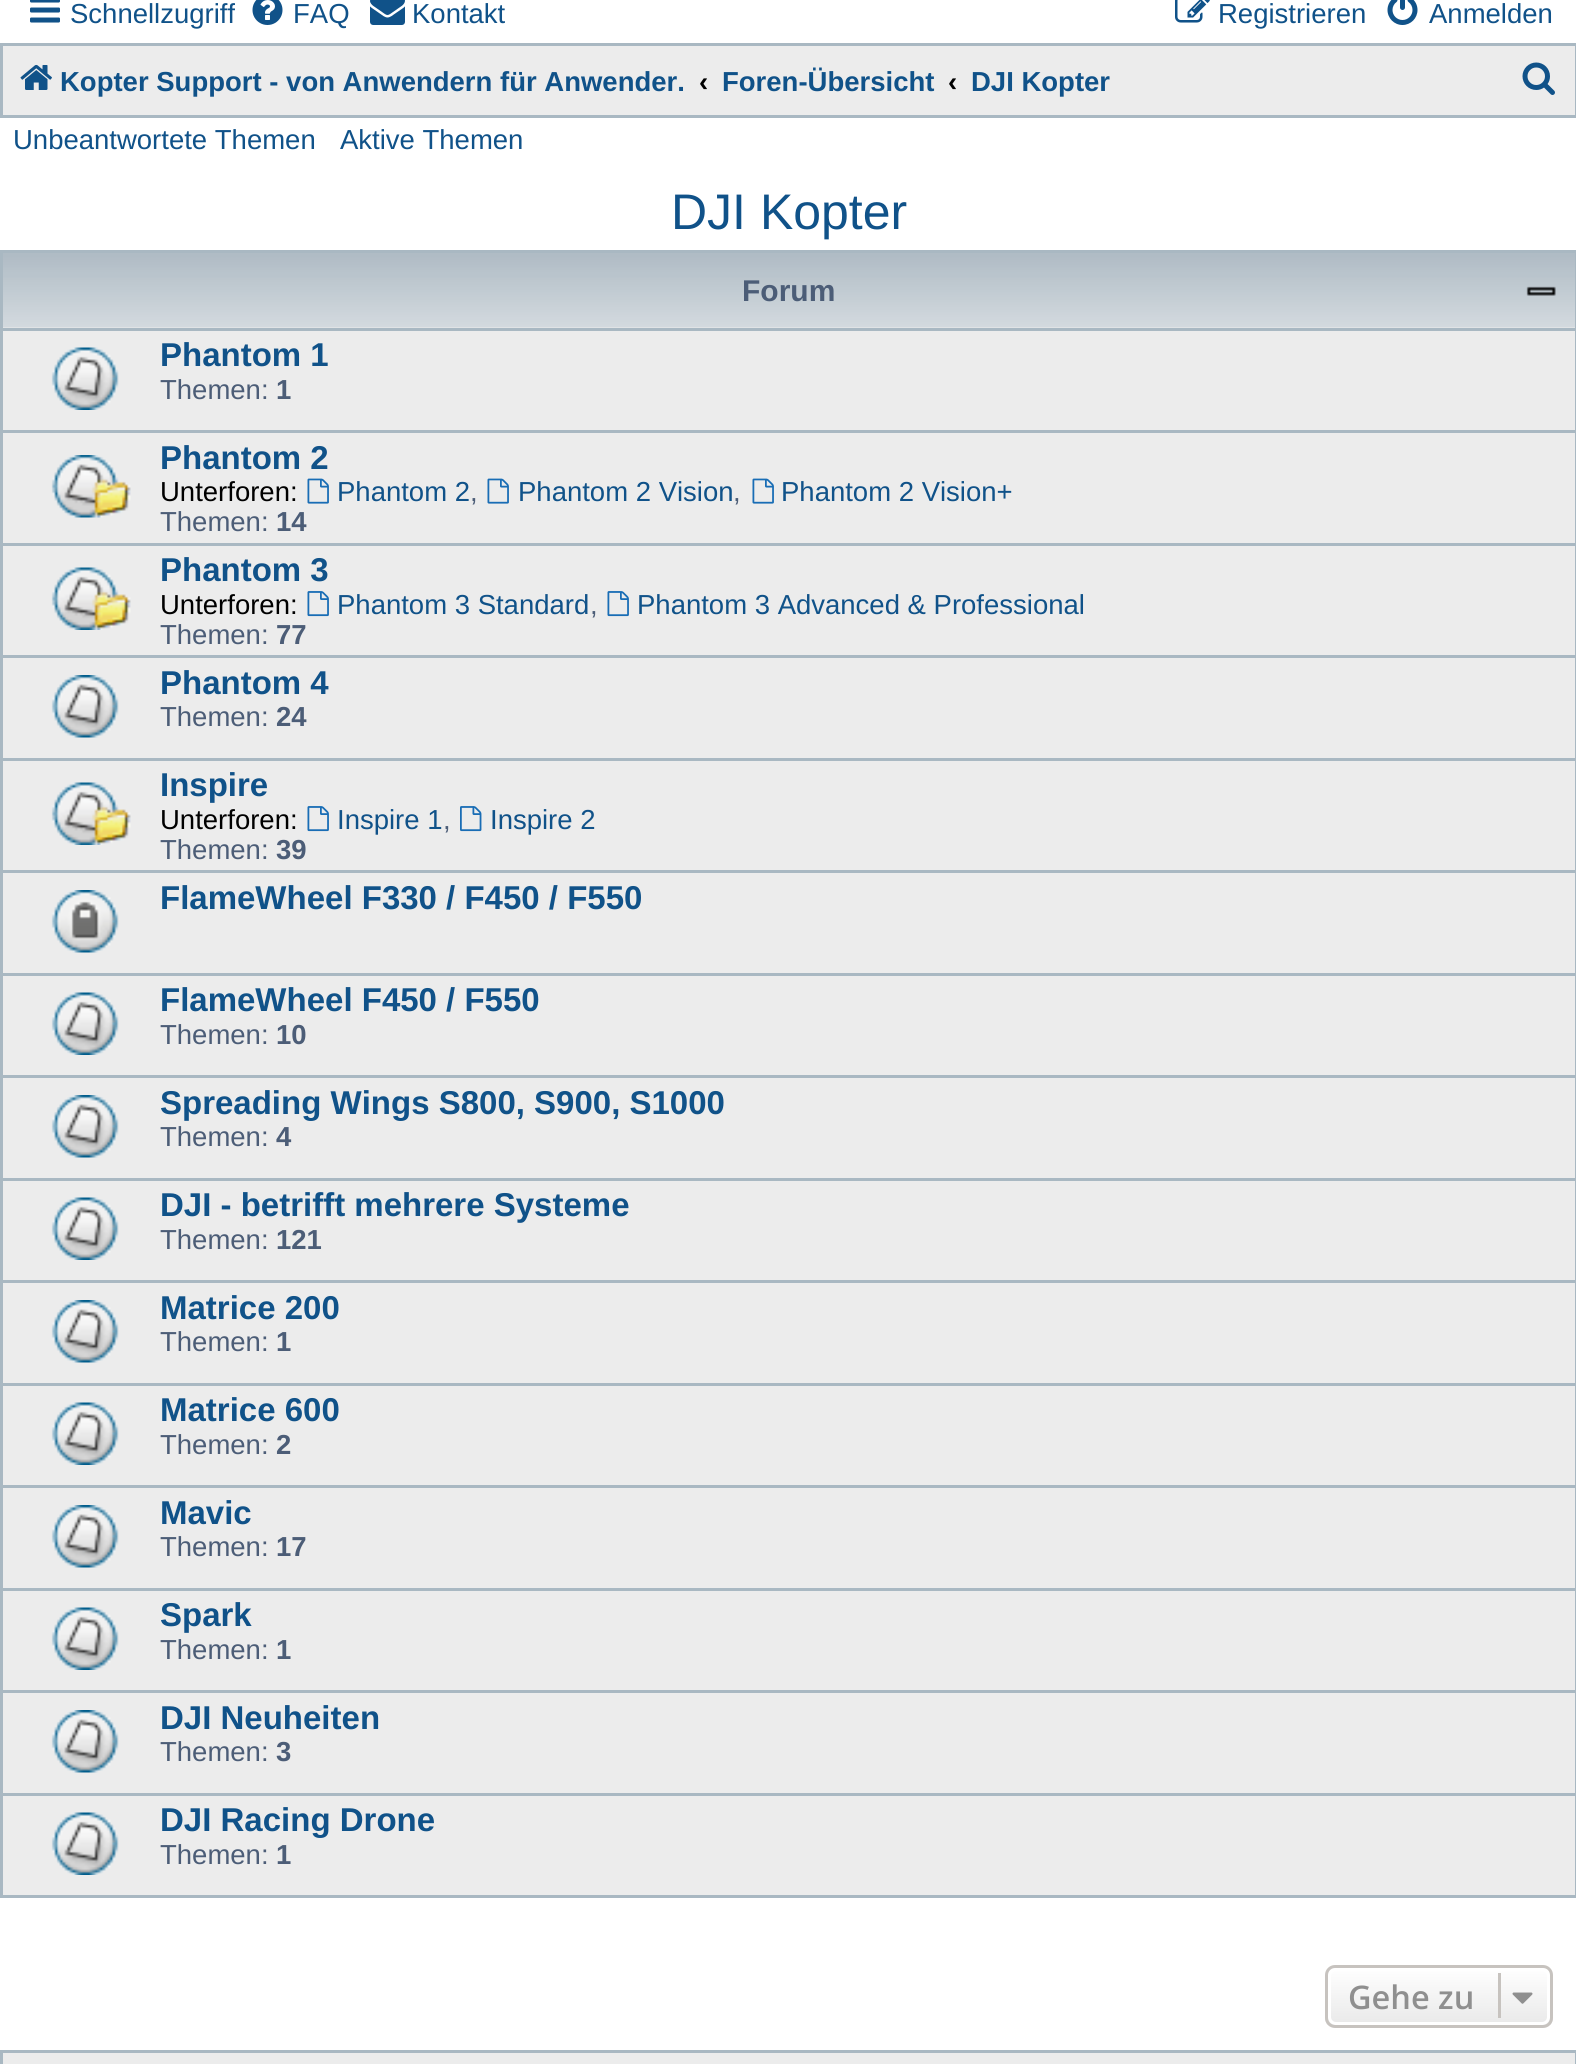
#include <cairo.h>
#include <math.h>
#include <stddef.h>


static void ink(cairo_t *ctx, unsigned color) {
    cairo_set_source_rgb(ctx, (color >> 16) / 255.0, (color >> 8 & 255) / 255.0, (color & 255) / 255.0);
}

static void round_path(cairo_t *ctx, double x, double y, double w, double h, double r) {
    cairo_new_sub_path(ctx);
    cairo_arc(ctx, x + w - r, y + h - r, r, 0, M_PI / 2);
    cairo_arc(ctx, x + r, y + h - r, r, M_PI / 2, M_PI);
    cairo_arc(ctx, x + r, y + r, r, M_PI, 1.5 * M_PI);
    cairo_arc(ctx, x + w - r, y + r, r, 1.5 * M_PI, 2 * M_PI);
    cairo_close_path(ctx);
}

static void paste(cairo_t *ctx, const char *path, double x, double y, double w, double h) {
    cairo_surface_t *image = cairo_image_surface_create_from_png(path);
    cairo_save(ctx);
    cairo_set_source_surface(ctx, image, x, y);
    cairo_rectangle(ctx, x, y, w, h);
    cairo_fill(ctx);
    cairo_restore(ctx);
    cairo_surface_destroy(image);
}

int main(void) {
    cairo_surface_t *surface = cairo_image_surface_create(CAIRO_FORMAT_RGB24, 1576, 2064);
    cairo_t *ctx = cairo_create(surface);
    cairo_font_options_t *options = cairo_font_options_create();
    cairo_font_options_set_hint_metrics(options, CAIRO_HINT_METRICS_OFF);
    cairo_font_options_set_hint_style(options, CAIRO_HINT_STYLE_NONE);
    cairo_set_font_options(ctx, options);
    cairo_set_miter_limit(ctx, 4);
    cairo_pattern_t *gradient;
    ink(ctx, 0xFFFFFF);
    cairo_paint(ctx);
    paste(ctx, "media/1.png", 30, 0, 30, 23);
    cairo_select_font_face(ctx, "Liberation Sans", CAIRO_FONT_SLANT_NORMAL, CAIRO_FONT_WEIGHT_NORMAL);
    cairo_set_font_size(ctx, 27.5);
    ink(ctx, 0x105289);
    cairo_move_to(ctx, 70, 23);
    cairo_show_text(ctx, "Schnellzugriff");
    paste(ctx, "media/2.png", 252, 0, 31, 25);
    cairo_move_to(ctx, 293, 23);
    cairo_show_text(ctx, "FAQ");
    paste(ctx, "media/3.png", 370, 0, 35, 25);
    cairo_move_to(ctx, 412, 23);
    cairo_show_text(ctx, "Kontakt");
    paste(ctx, "media/4.png", 1175, 0, 35, 23);
    cairo_move_to(ctx, 1218, 23);
    cairo_show_text(ctx, "Registrieren");
    paste(ctx, "media/5.png", 1387, 0, 31, 25);
    cairo_move_to(ctx, 1429, 23);
    cairo_show_text(ctx, "Anmelden");
    ink(ctx, 0xECECEC);
    cairo_rectangle(ctx, 1.5, 44.5, 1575, 72);
    cairo_fill_preserve(ctx);
    ink(ctx, 0xA9B8C2);
    cairo_set_line_width(ctx, 3);
    cairo_stroke(ctx);
    paste(ctx, "media/6.png", 20, 64, 32, 26);
    cairo_select_font_face(ctx, "Liberation Sans", CAIRO_FONT_SLANT_NORMAL, CAIRO_FONT_WEIGHT_BOLD);
    ink(ctx, 0x105289);
    cairo_move_to(ctx, 60, 91);
    cairo_show_text(ctx, "Kopter Support - von Anwendern für Anwender.");
    ink(ctx, 0x000000);
    cairo_move_to(ctx, 699, 91);
    cairo_show_text(ctx, "‹");
    ink(ctx, 0x105289);
    cairo_move_to(ctx, 722, 91);
    cairo_show_text(ctx, "Foren-Übersicht");
    ink(ctx, 0x000000);
    cairo_move_to(ctx, 948, 91);
    cairo_show_text(ctx, "‹");
    ink(ctx, 0x105289);
    cairo_move_to(ctx, 971, 91);
    cairo_show_text(ctx, "DJI Kopter");
    paste(ctx, "media/7.png", 1522, 62, 33, 33);
    cairo_select_font_face(ctx, "Liberation Sans", CAIRO_FONT_SLANT_NORMAL, CAIRO_FONT_WEIGHT_NORMAL);
    cairo_move_to(ctx, 13, 149);
    cairo_show_text(ctx, "Unbeantwortete Themen");
    cairo_move_to(ctx, 340, 149);
    cairo_show_text(ctx, "Aktive Themen");
    cairo_set_font_size(ctx, 50);
    cairo_move_to(ctx, 671, 229);
    cairo_show_text(ctx, "DJI Kopter");
    ink(ctx, 0xECECEC);
    cairo_rectangle(ctx, 3, 327, 1572, 1568);
    cairo_fill(ctx);
    paste(ctx, "media/8.png", 3, 253, 1572, 75);
    cairo_rectangle(ctx, 1.5, 251.5, 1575, 1645);
    ink(ctx, 0xA9B8C2);
    cairo_stroke(ctx);
    cairo_select_font_face(ctx, "Liberation Sans", CAIRO_FONT_SLANT_NORMAL, CAIRO_FONT_WEIGHT_BOLD);
    cairo_set_font_size(ctx, 30);
    ink(ctx, 0x4C5D77);
    cairo_move_to(ctx, 742, 301);
    cairo_show_text(ctx, "Forum");
    paste(ctx, "media/9.png", 1526, 286, 30, 10);
    ink(ctx, 0xA9B8C2);
    cairo_rectangle(ctx, 3, 328, 1572, 3);
    cairo_fill(ctx);
    paste(ctx, "media/10.png", 51, 347, 68, 63);
    cairo_set_font_size(ctx, 33);
    ink(ctx, 0x105289);
    cairo_move_to(ctx, 160, 366);
    cairo_show_text(ctx, "Phantom 1");
    cairo_select_font_face(ctx, "Liberation Sans", CAIRO_FONT_SLANT_NORMAL, CAIRO_FONT_WEIGHT_NORMAL);
    cairo_set_font_size(ctx, 27.5);
    ink(ctx, 0x4C5D77);
    cairo_move_to(ctx, 160, 399);
    cairo_show_text(ctx, "Themen:");
    cairo_select_font_face(ctx, "Liberation Sans", CAIRO_FONT_SLANT_NORMAL, CAIRO_FONT_WEIGHT_BOLD);
    cairo_move_to(ctx, 276, 399);
    cairo_show_text(ctx, "1");
    ink(ctx, 0xA9B8C2);
    cairo_rectangle(ctx, 3, 430, 1572, 3);
    cairo_fill(ctx);
    paste(ctx, "media/11.png", 51, 455, 80, 63);
    cairo_set_font_size(ctx, 33);
    ink(ctx, 0x105289);
    cairo_move_to(ctx, 160, 469);
    cairo_show_text(ctx, "Phantom 2");
    cairo_select_font_face(ctx, "Liberation Sans", CAIRO_FONT_SLANT_NORMAL, CAIRO_FONT_WEIGHT_NORMAL);
    cairo_set_font_size(ctx, 27.5);
    ink(ctx, 0x000000);
    cairo_move_to(ctx, 160, 501);
    cairo_show_text(ctx, "Unterforen:");
    paste(ctx, "media/12.png", 307, 478, 22, 26);
    ink(ctx, 0x105289);
    cairo_move_to(ctx, 337, 501);
    cairo_show_text(ctx, "Phantom 2");
    ink(ctx, 0x4C5D77);
    cairo_move_to(ctx, 470, 501);
    cairo_show_text(ctx, ",");
    paste(ctx, "media/12.png", 487, 478, 22, 26);
    ink(ctx, 0x105289);
    cairo_move_to(ctx, 518, 501);
    cairo_show_text(ctx, "Phantom 2 Vision");
    ink(ctx, 0x4C5D77);
    cairo_move_to(ctx, 733, 501);
    cairo_show_text(ctx, ",");
    paste(ctx, "media/12.png", 752, 478, 22, 26);
    ink(ctx, 0x105289);
    cairo_move_to(ctx, 781, 501);
    cairo_show_text(ctx, "Phantom 2 Vision+");
    ink(ctx, 0x4C5D77);
    cairo_move_to(ctx, 160, 531);
    cairo_show_text(ctx, "Themen:");
    cairo_select_font_face(ctx, "Liberation Sans", CAIRO_FONT_SLANT_NORMAL, CAIRO_FONT_WEIGHT_BOLD);
    cairo_move_to(ctx, 276, 531);
    cairo_show_text(ctx, "14");
    ink(ctx, 0xA9B8C2);
    cairo_rectangle(ctx, 3, 543, 1572, 3);
    cairo_fill(ctx);
    paste(ctx, "media/13.png", 51, 567, 80, 63);
    cairo_set_font_size(ctx, 33);
    ink(ctx, 0x105289);
    cairo_move_to(ctx, 160, 581);
    cairo_show_text(ctx, "Phantom 3");
    cairo_select_font_face(ctx, "Liberation Sans", CAIRO_FONT_SLANT_NORMAL, CAIRO_FONT_WEIGHT_NORMAL);
    cairo_set_font_size(ctx, 27.5);
    ink(ctx, 0x000000);
    cairo_move_to(ctx, 160, 614);
    cairo_show_text(ctx, "Unterforen:");
    paste(ctx, "media/14.png", 307, 591, 22, 26);
    ink(ctx, 0x105289);
    cairo_move_to(ctx, 337, 614);
    cairo_show_text(ctx, "Phantom 3 Standard");
    ink(ctx, 0x4C5D77);
    cairo_move_to(ctx, 590, 614);
    cairo_show_text(ctx, ",");
    paste(ctx, "media/14.png", 607, 591, 22, 26);
    ink(ctx, 0x105289);
    cairo_move_to(ctx, 637, 614);
    cairo_show_text(ctx, "Phantom 3 Advanced & Professional");
    ink(ctx, 0x4C5D77);
    cairo_move_to(ctx, 160, 644);
    cairo_show_text(ctx, "Themen:");
    cairo_select_font_face(ctx, "Liberation Sans", CAIRO_FONT_SLANT_NORMAL, CAIRO_FONT_WEIGHT_BOLD);
    cairo_move_to(ctx, 276, 644);
    cairo_show_text(ctx, "77");
    ink(ctx, 0xA9B8C2);
    cairo_rectangle(ctx, 3, 655, 1572, 3);
    cairo_fill(ctx);
    paste(ctx, "media/15.png", 51, 675, 68, 63);
    cairo_set_font_size(ctx, 33);
    ink(ctx, 0x105289);
    cairo_move_to(ctx, 160, 694);
    cairo_show_text(ctx, "Phantom 4");
    cairo_select_font_face(ctx, "Liberation Sans", CAIRO_FONT_SLANT_NORMAL, CAIRO_FONT_WEIGHT_NORMAL);
    cairo_set_font_size(ctx, 27.5);
    ink(ctx, 0x4C5D77);
    cairo_move_to(ctx, 160, 726);
    cairo_show_text(ctx, "Themen:");
    cairo_select_font_face(ctx, "Liberation Sans", CAIRO_FONT_SLANT_NORMAL, CAIRO_FONT_WEIGHT_BOLD);
    cairo_move_to(ctx, 276, 726);
    cairo_show_text(ctx, "24");
    ink(ctx, 0xA9B8C2);
    cairo_rectangle(ctx, 3, 758, 1572, 3);
    cairo_fill(ctx);
    paste(ctx, "media/13.png", 51, 782, 80, 63);
    cairo_set_font_size(ctx, 33);
    ink(ctx, 0x105289);
    cairo_move_to(ctx, 160, 796);
    cairo_show_text(ctx, "Inspire");
    cairo_select_font_face(ctx, "Liberation Sans", CAIRO_FONT_SLANT_NORMAL, CAIRO_FONT_WEIGHT_NORMAL);
    cairo_set_font_size(ctx, 27.5);
    ink(ctx, 0x000000);
    cairo_move_to(ctx, 160, 829);
    cairo_show_text(ctx, "Unterforen:");
    paste(ctx, "media/14.png", 307, 806, 22, 26);
    ink(ctx, 0x105289);
    cairo_move_to(ctx, 337, 829);
    cairo_show_text(ctx, "Inspire 1");
    ink(ctx, 0x4C5D77);
    cairo_move_to(ctx, 443, 829);
    cairo_show_text(ctx, ",");
    paste(ctx, "media/16.png", 460, 806, 22, 26);
    ink(ctx, 0x105289);
    cairo_move_to(ctx, 490, 829);
    cairo_show_text(ctx, "Inspire 2");
    ink(ctx, 0x4C5D77);
    cairo_move_to(ctx, 160, 859);
    cairo_show_text(ctx, "Themen:");
    cairo_select_font_face(ctx, "Liberation Sans", CAIRO_FONT_SLANT_NORMAL, CAIRO_FONT_WEIGHT_BOLD);
    cairo_move_to(ctx, 276, 859);
    cairo_show_text(ctx, "39");
    ink(ctx, 0xA9B8C2);
    cairo_rectangle(ctx, 3, 870, 1572, 3);
    cairo_fill(ctx);
    paste(ctx, "media/17.png", 51, 890, 68, 63);
    cairo_set_font_size(ctx, 33);
    ink(ctx, 0x105289);
    cairo_move_to(ctx, 160, 909);
    cairo_show_text(ctx, "FlameWheel F330 / F450 / F550");
    ink(ctx, 0xA9B8C2);
    cairo_rectangle(ctx, 3, 973, 1572, 3);
    cairo_fill(ctx);
    paste(ctx, "media/18.png", 51, 992, 68, 63);
    ink(ctx, 0x105289);
    cairo_move_to(ctx, 160, 1011);
    cairo_show_text(ctx, "FlameWheel F450 / F550");
    cairo_select_font_face(ctx, "Liberation Sans", CAIRO_FONT_SLANT_NORMAL, CAIRO_FONT_WEIGHT_NORMAL);
    cairo_set_font_size(ctx, 27.5);
    ink(ctx, 0x4C5D77);
    cairo_move_to(ctx, 160, 1044);
    cairo_show_text(ctx, "Themen:");
    cairo_select_font_face(ctx, "Liberation Sans", CAIRO_FONT_SLANT_NORMAL, CAIRO_FONT_WEIGHT_BOLD);
    cairo_move_to(ctx, 276, 1044);
    cairo_show_text(ctx, "10");
    ink(ctx, 0xA9B8C2);
    cairo_rectangle(ctx, 3, 1075, 1572, 3);
    cairo_fill(ctx);
    paste(ctx, "media/15.png", 51, 1095, 68, 63);
    cairo_set_font_size(ctx, 33);
    ink(ctx, 0x105289);
    cairo_move_to(ctx, 160, 1114);
    cairo_show_text(ctx, "Spreading Wings S800, S900, S1000");
    cairo_select_font_face(ctx, "Liberation Sans", CAIRO_FONT_SLANT_NORMAL, CAIRO_FONT_WEIGHT_NORMAL);
    cairo_set_font_size(ctx, 27.5);
    ink(ctx, 0x4C5D77);
    cairo_move_to(ctx, 160, 1146);
    cairo_show_text(ctx, "Themen:");
    cairo_select_font_face(ctx, "Liberation Sans", CAIRO_FONT_SLANT_NORMAL, CAIRO_FONT_WEIGHT_BOLD);
    cairo_move_to(ctx, 276, 1146);
    cairo_show_text(ctx, "4");
    ink(ctx, 0xA9B8C2);
    cairo_rectangle(ctx, 3, 1178, 1572, 3);
    cairo_fill(ctx);
    paste(ctx, "media/10.png", 51, 1197, 68, 63);
    cairo_set_font_size(ctx, 33);
    ink(ctx, 0x105289);
    cairo_move_to(ctx, 160, 1216);
    cairo_show_text(ctx, "DJI - betrifft mehrere Systeme");
    cairo_select_font_face(ctx, "Liberation Sans", CAIRO_FONT_SLANT_NORMAL, CAIRO_FONT_WEIGHT_NORMAL);
    cairo_set_font_size(ctx, 27.5);
    ink(ctx, 0x4C5D77);
    cairo_move_to(ctx, 160, 1249);
    cairo_show_text(ctx, "Themen:");
    cairo_select_font_face(ctx, "Liberation Sans", CAIRO_FONT_SLANT_NORMAL, CAIRO_FONT_WEIGHT_BOLD);
    cairo_move_to(ctx, 276, 1249);
    cairo_show_text(ctx, "121");
    ink(ctx, 0xA9B8C2);
    cairo_rectangle(ctx, 3, 1280, 1572, 3);
    cairo_fill(ctx);
    paste(ctx, "media/15.png", 51, 1300, 68, 63);
    cairo_set_font_size(ctx, 33);
    ink(ctx, 0x105289);
    cairo_move_to(ctx, 160, 1319);
    cairo_show_text(ctx, "Matrice 200");
    cairo_select_font_face(ctx, "Liberation Sans", CAIRO_FONT_SLANT_NORMAL, CAIRO_FONT_WEIGHT_NORMAL);
    cairo_set_font_size(ctx, 27.5);
    ink(ctx, 0x4C5D77);
    cairo_move_to(ctx, 160, 1351);
    cairo_show_text(ctx, "Themen:");
    cairo_select_font_face(ctx, "Liberation Sans", CAIRO_FONT_SLANT_NORMAL, CAIRO_FONT_WEIGHT_BOLD);
    cairo_move_to(ctx, 276, 1351);
    cairo_show_text(ctx, "1");
    ink(ctx, 0xA9B8C2);
    cairo_rectangle(ctx, 3, 1383, 1572, 3);
    cairo_fill(ctx);
    paste(ctx, "media/10.png", 51, 1402, 68, 63);
    cairo_set_font_size(ctx, 33);
    ink(ctx, 0x105289);
    cairo_move_to(ctx, 160, 1421);
    cairo_show_text(ctx, "Matrice 600");
    cairo_select_font_face(ctx, "Liberation Sans", CAIRO_FONT_SLANT_NORMAL, CAIRO_FONT_WEIGHT_NORMAL);
    cairo_set_font_size(ctx, 27.5);
    ink(ctx, 0x4C5D77);
    cairo_move_to(ctx, 160, 1454);
    cairo_show_text(ctx, "Themen:");
    cairo_select_font_face(ctx, "Liberation Sans", CAIRO_FONT_SLANT_NORMAL, CAIRO_FONT_WEIGHT_BOLD);
    cairo_move_to(ctx, 276, 1454);
    cairo_show_text(ctx, "2");
    ink(ctx, 0xA9B8C2);
    cairo_rectangle(ctx, 3, 1485, 1572, 3);
    cairo_fill(ctx);
    paste(ctx, "media/15.png", 51, 1505, 68, 63);
    cairo_set_font_size(ctx, 33);
    ink(ctx, 0x105289);
    cairo_move_to(ctx, 160, 1524);
    cairo_show_text(ctx, "Mavic");
    cairo_select_font_face(ctx, "Liberation Sans", CAIRO_FONT_SLANT_NORMAL, CAIRO_FONT_WEIGHT_NORMAL);
    cairo_set_font_size(ctx, 27.5);
    ink(ctx, 0x4C5D77);
    cairo_move_to(ctx, 160, 1556);
    cairo_show_text(ctx, "Themen:");
    cairo_select_font_face(ctx, "Liberation Sans", CAIRO_FONT_SLANT_NORMAL, CAIRO_FONT_WEIGHT_BOLD);
    cairo_move_to(ctx, 276, 1556);
    cairo_show_text(ctx, "17");
    ink(ctx, 0xA9B8C2);
    cairo_rectangle(ctx, 3, 1588, 1572, 3);
    cairo_fill(ctx);
    paste(ctx, "media/10.png", 51, 1607, 68, 63);
    cairo_set_font_size(ctx, 33);
    ink(ctx, 0x105289);
    cairo_move_to(ctx, 160, 1626);
    cairo_show_text(ctx, "Spark");
    cairo_select_font_face(ctx, "Liberation Sans", CAIRO_FONT_SLANT_NORMAL, CAIRO_FONT_WEIGHT_NORMAL);
    cairo_set_font_size(ctx, 27.5);
    ink(ctx, 0x4C5D77);
    cairo_move_to(ctx, 160, 1659);
    cairo_show_text(ctx, "Themen:");
    cairo_select_font_face(ctx, "Liberation Sans", CAIRO_FONT_SLANT_NORMAL, CAIRO_FONT_WEIGHT_BOLD);
    cairo_move_to(ctx, 276, 1659);
    cairo_show_text(ctx, "1");
    ink(ctx, 0xA9B8C2);
    cairo_rectangle(ctx, 3, 1690, 1572, 3);
    cairo_fill(ctx);
    paste(ctx, "media/19.png", 51, 1710, 68, 63);
    cairo_set_font_size(ctx, 33);
    ink(ctx, 0x105289);
    cairo_move_to(ctx, 160, 1729);
    cairo_show_text(ctx, "DJI Neuheiten");
    cairo_select_font_face(ctx, "Liberation Sans", CAIRO_FONT_SLANT_NORMAL, CAIRO_FONT_WEIGHT_NORMAL);
    cairo_set_font_size(ctx, 27.5);
    ink(ctx, 0x4C5D77);
    cairo_move_to(ctx, 160, 1761);
    cairo_show_text(ctx, "Themen:");
    cairo_select_font_face(ctx, "Liberation Sans", CAIRO_FONT_SLANT_NORMAL, CAIRO_FONT_WEIGHT_BOLD);
    cairo_move_to(ctx, 276, 1761);
    cairo_show_text(ctx, "3");
    ink(ctx, 0xA9B8C2);
    cairo_rectangle(ctx, 3, 1793, 1572, 3);
    cairo_fill(ctx);
    paste(ctx, "media/10.png", 51, 1812, 68, 63);
    cairo_set_font_size(ctx, 33);
    ink(ctx, 0x105289);
    cairo_move_to(ctx, 160, 1831);
    cairo_show_text(ctx, "DJI Racing Drone");
    cairo_select_font_face(ctx, "Liberation Sans", CAIRO_FONT_SLANT_NORMAL, CAIRO_FONT_WEIGHT_NORMAL);
    cairo_set_font_size(ctx, 27.5);
    ink(ctx, 0x4C5D77);
    cairo_move_to(ctx, 160, 1864);
    cairo_show_text(ctx, "Themen:");
    cairo_select_font_face(ctx, "Liberation Sans", CAIRO_FONT_SLANT_NORMAL, CAIRO_FONT_WEIGHT_BOLD);
    cairo_move_to(ctx, 276, 1864);
    cairo_show_text(ctx, "1");
    cairo_save(ctx);
    round_path(ctx, 1325, 1965, 228, 63, 10);
    cairo_clip(ctx);
    gradient = cairo_pattern_create_linear(1439, 1968, 1439, 2025);
    cairo_pattern_add_color_stop_rgba(gradient, 0, 1, 1, 1, 1);
    cairo_pattern_add_color_stop_rgba(gradient, 1, 0.914, 0.914, 0.914, 1);
    cairo_set_source(ctx, gradient);
    cairo_pattern_destroy(gradient);
    cairo_rectangle(ctx, 1325, 1968, 228, 57);
    cairo_fill(ctx);
    cairo_restore(ctx);
    round_path(ctx, 1329.5, 1969.5, 219, 54, 6.5);
    ink(ctx, 0xFFFFFF);
    cairo_stroke(ctx);
    round_path(ctx, 1326.5, 1966.5, 225, 60, 8.5);
    ink(ctx, 0xC7C3BF);
    cairo_stroke(ctx);
    cairo_select_font_face(ctx, "Open Sans SemiBold", CAIRO_FONT_SLANT_NORMAL, CAIRO_FONT_WEIGHT_NORMAL);
    cairo_set_font_size(ctx, 32.5);
    ink(ctx, 0x8F8F8F);
    cairo_move_to(ctx, 1348, 2009);
    cairo_show_text(ctx, "Gehe zu");
    ink(ctx, 0xC7C3BF);
    cairo_rectangle(ctx, 1498, 1973, 3, 45);
    cairo_fill(ctx);
    paste(ctx, "media/20.png", 1512, 1992, 21, 12);
    ink(ctx, 0xECECEC);
    cairo_rectangle(ctx, 1.5, 2051.5, 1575, 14);
    cairo_fill_preserve(ctx);
    ink(ctx, 0xA9B8C2);
    cairo_stroke(ctx);
    cairo_surface_write_to_png(surface, "image.png");
    cairo_font_options_destroy(options);
    cairo_destroy(ctx);
    cairo_surface_destroy(surface);
    return 0;
}
